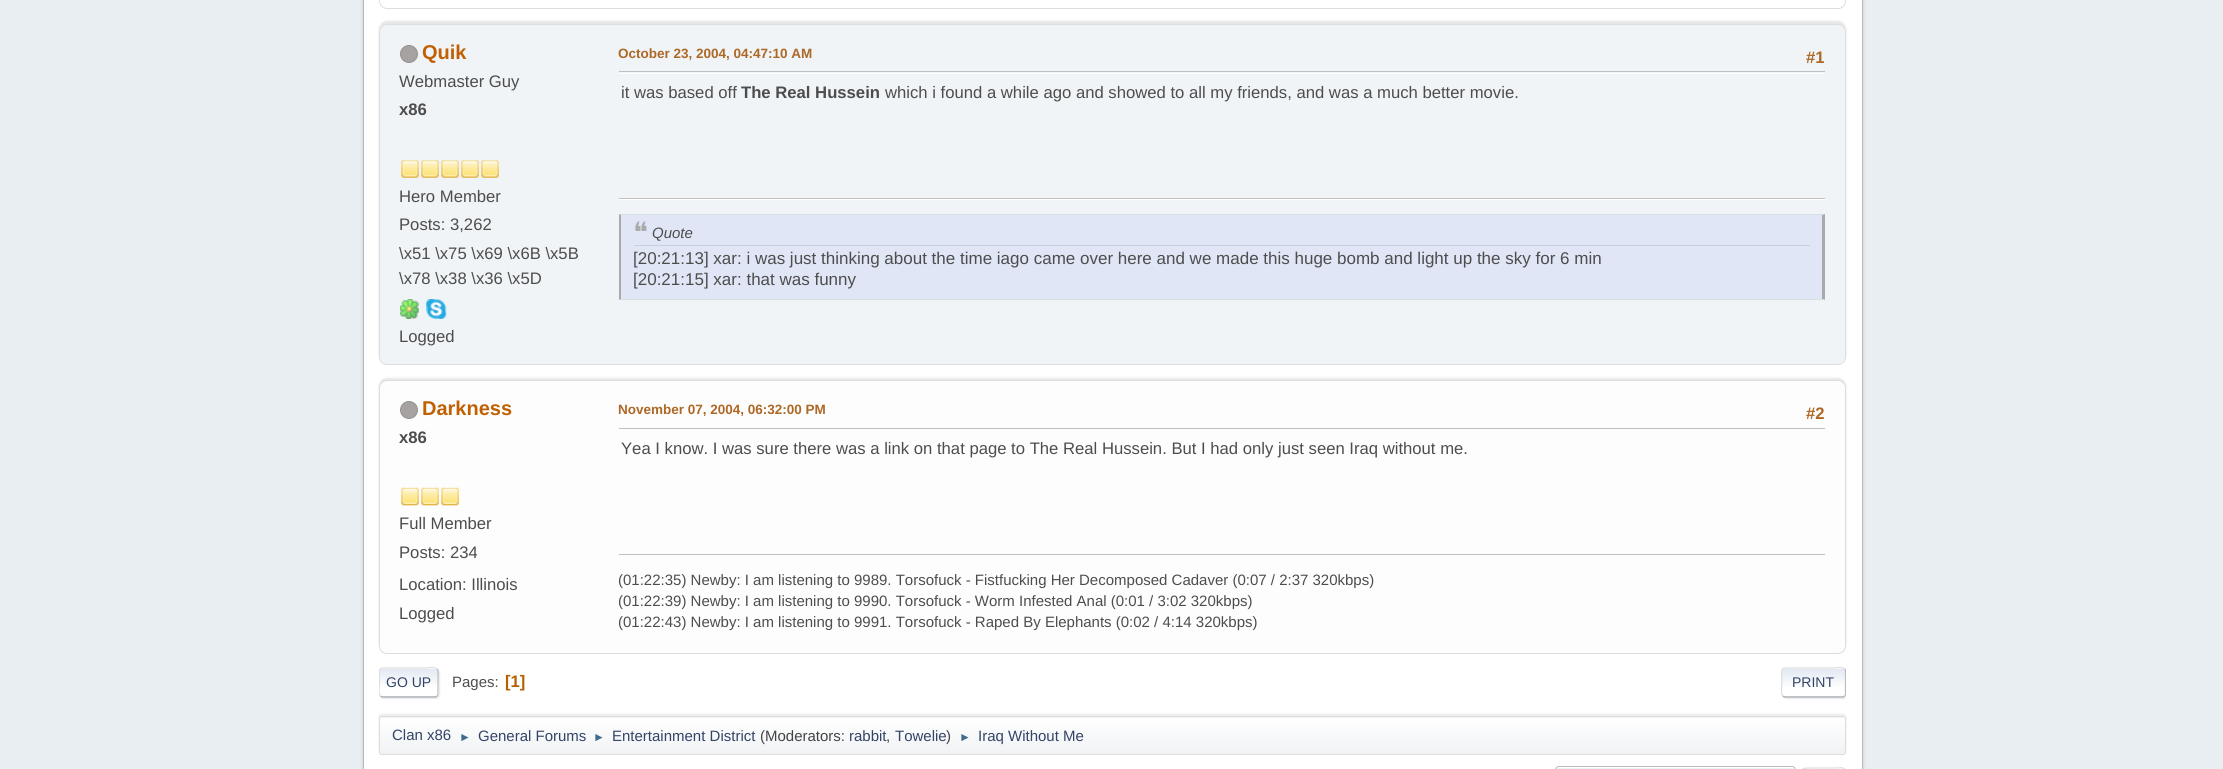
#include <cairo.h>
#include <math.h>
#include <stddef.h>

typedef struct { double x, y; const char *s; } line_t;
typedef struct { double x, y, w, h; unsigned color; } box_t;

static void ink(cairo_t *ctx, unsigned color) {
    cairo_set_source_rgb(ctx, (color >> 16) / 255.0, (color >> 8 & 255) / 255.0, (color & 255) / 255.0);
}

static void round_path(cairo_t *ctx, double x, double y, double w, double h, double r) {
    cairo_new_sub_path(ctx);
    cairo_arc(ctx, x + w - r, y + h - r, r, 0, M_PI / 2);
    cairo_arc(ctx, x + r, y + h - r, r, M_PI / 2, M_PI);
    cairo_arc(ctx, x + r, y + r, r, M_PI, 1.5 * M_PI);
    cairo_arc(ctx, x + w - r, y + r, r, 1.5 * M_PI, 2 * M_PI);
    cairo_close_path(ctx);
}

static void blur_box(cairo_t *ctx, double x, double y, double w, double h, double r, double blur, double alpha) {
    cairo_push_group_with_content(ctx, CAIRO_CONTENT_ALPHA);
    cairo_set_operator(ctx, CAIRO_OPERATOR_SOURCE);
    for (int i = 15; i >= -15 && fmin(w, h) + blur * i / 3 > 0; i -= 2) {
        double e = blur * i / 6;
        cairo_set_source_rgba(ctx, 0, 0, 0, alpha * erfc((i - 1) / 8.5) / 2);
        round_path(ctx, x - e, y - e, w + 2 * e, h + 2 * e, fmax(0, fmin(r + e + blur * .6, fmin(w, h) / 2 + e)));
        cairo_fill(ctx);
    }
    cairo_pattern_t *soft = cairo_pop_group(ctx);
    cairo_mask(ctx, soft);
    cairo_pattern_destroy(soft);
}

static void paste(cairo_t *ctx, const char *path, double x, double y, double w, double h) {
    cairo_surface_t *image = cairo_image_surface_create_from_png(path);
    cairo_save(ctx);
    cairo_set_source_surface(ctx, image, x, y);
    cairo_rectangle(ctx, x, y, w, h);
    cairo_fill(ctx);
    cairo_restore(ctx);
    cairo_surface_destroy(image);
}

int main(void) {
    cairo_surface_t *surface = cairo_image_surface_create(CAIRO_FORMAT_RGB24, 2223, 769);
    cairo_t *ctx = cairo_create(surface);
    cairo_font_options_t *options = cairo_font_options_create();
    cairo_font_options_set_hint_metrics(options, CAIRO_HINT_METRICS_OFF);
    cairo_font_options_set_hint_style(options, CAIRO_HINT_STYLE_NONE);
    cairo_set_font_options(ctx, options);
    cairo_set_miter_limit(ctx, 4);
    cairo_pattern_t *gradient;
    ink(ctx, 0xE9EEF2);
    cairo_paint(ctx);
    ink(ctx, 0x000000);
    blur_box(ctx, 363, -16, 1500, 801, 10, 2, 0.14);
    ink(ctx, 0xFFFFFF);
    cairo_rectangle(ctx, 363.5, -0.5, 1499, 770);
    cairo_fill_preserve(ctx);
    ink(ctx, 0xB8B8B8);
    cairo_set_line_width(ctx, 1);
    cairo_stroke(ctx);
    round_path(ctx, 379.5, -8.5, 1466, 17, 7.5);
    ink(ctx, 0xDDDDDD);
    cairo_stroke(ctx);
    ink(ctx, 0x000000);
    blur_box(ctx, 379, 21, 1467, 342, 8, 1, 0.1);
    ink(ctx, 0xF0F4F7);
    round_path(ctx, 379.5, 24.5, 1466, 340, 7.5);
    cairo_fill_preserve(ctx);
    ink(ctx, 0xDDDDDD);
    cairo_stroke(ctx);
    ink(ctx, 0xA7A2A2);
    cairo_arc(ctx, 409, 54, 8.5, 0, 2 * M_PI);
    cairo_fill_preserve(ctx);
    ink(ctx, 0x969292);
    cairo_stroke(ctx);
    cairo_select_font_face(ctx, "Liberation Sans", CAIRO_FONT_SLANT_NORMAL, CAIRO_FONT_WEIGHT_BOLD);
    cairo_set_font_size(ctx, 20);
    ink(ctx, 0xC06002);
    cairo_move_to(ctx, 422, 59);
    cairo_show_text(ctx, "Quik");
    cairo_select_font_face(ctx, "Liberation Sans", CAIRO_FONT_SLANT_NORMAL, CAIRO_FONT_WEIGHT_NORMAL);
    cairo_set_font_size(ctx, 16.67);
    ink(ctx, 0x4D4D4D);
    cairo_move_to(ctx, 399, 87);
    cairo_show_text(ctx, "Webmaster Guy");
    cairo_select_font_face(ctx, "Liberation Sans", CAIRO_FONT_SLANT_NORMAL, CAIRO_FONT_WEIGHT_BOLD);
    cairo_move_to(ctx, 399, 115);
    cairo_show_text(ctx, "x86");
    paste(ctx, "media/1.png", 401, 160, 18, 18);
    paste(ctx, "media/2.png", 421, 160, 18, 18);
    paste(ctx, "media/2.png", 441, 160, 18, 18);
    paste(ctx, "media/2.png", 461, 160, 18, 18);
    paste(ctx, "media/2.png", 481, 160, 18, 18);
    cairo_select_font_face(ctx, "Liberation Sans", CAIRO_FONT_SLANT_NORMAL, CAIRO_FONT_WEIGHT_NORMAL);
    {
        static const line_t items[] = {
            {399, 202, "Hero Member"},
            {399, 230, "Posts: 3,262"},
            {399, 259, "\\x51 \\x75 \\x69 \\x6B \\x5B"},
            {399, 284, "\\x78 \\x38 \\x36 \\x5D"},
        };
        for (size_t i = 0; i < sizeof items / sizeof *items; i++) {
            cairo_move_to(ctx, items[i].x, items[i].y);
            cairo_show_text(ctx, items[i].s);
        }
    }
    paste(ctx, "media/3.png", 400, 299, 19, 20);
    paste(ctx, "media/4.png", 426, 299, 21, 20);
    cairo_move_to(ctx, 399, 342);
    cairo_show_text(ctx, "Logged");
    cairo_select_font_face(ctx, "Liberation Sans", CAIRO_FONT_SLANT_NORMAL, CAIRO_FONT_WEIGHT_BOLD);
    cairo_set_font_size(ctx, 13.5);
    ink(ctx, 0xAD6825);
    cairo_move_to(ctx, 618, 58);
    cairo_show_text(ctx, "October 23, 2004, 04:47:10 AM");
    cairo_set_font_size(ctx, 16.67);
    cairo_move_to(ctx, 1806, 63);
    cairo_show_text(ctx, "#1");
    ink(ctx, 0xFFFFFF);
    cairo_rectangle(ctx, 619, 73, 1206, 1);
    cairo_fill(ctx);
    ink(ctx, 0xBFBFBF);
    cairo_rectangle(ctx, 619, 71, 1206, 1);
    cairo_fill(ctx);
    cairo_select_font_face(ctx, "Liberation Sans", CAIRO_FONT_SLANT_NORMAL, CAIRO_FONT_WEIGHT_NORMAL);
    ink(ctx, 0x4D4D4D);
    cairo_move_to(ctx, 621, 98);
    cairo_show_text(ctx, "it was based off");
    cairo_select_font_face(ctx, "Liberation Sans", CAIRO_FONT_SLANT_NORMAL, CAIRO_FONT_WEIGHT_BOLD);
    cairo_move_to(ctx, 741, 98);
    cairo_show_text(ctx, "The Real Hussein");
    cairo_select_font_face(ctx, "Liberation Sans", CAIRO_FONT_SLANT_NORMAL, CAIRO_FONT_WEIGHT_NORMAL);
    cairo_move_to(ctx, 885, 98);
    cairo_show_text(ctx, "which i found a while ago and showed to all my friends, and was a much better movie.");
    {
        static const box_t items[] = {
            {619, 199, 1206, 1, 0xFFFFFF},
            {619, 198, 1206, 1, 0xBFBFBF},
            {621, 215, 1201, 84, 0xE0E6F6},
        };
        for (size_t i = 0; i < sizeof items / sizeof *items; i++) {
            ink(ctx, items[i].color);
            cairo_rectangle(ctx, items[i].x, items[i].y, items[i].w, items[i].h);
            cairo_fill(ctx);
        }
    }
    ink(ctx, 0xD6DFE2);
    cairo_new_path(ctx);
    cairo_move_to(ctx, 619, 214);
    cairo_line_to(ctx, 1825, 214);
    cairo_line_to(ctx, 1822, 215);
    cairo_line_to(ctx, 621, 215);
    cairo_close_path(ctx);
    cairo_fill(ctx);
    ink(ctx, 0xAAAAAA);
    cairo_new_path(ctx);
    cairo_move_to(ctx, 1825, 214);
    cairo_line_to(ctx, 1825, 300);
    cairo_line_to(ctx, 1822, 299);
    cairo_line_to(ctx, 1822, 215);
    cairo_close_path(ctx);
    cairo_fill(ctx);
    ink(ctx, 0xD6DFE2);
    cairo_new_path(ctx);
    cairo_move_to(ctx, 1825, 300);
    cairo_line_to(ctx, 619, 300);
    cairo_line_to(ctx, 621, 299);
    cairo_line_to(ctx, 1822, 299);
    cairo_close_path(ctx);
    cairo_fill(ctx);
    ink(ctx, 0xAAAAAA);
    cairo_new_path(ctx);
    cairo_move_to(ctx, 619, 300);
    cairo_line_to(ctx, 619, 214);
    cairo_line_to(ctx, 621, 215);
    cairo_line_to(ctx, 621, 299);
    cairo_close_path(ctx);
    cairo_fill(ctx);
    ink(ctx, 0xCACFDD);
    cairo_rectangle(ctx, 634, 245, 1176, 1);
    cairo_fill(ctx);
    cairo_select_font_face(ctx, "DejaVu Sans", CAIRO_FONT_SLANT_NORMAL, CAIRO_FONT_WEIGHT_NORMAL);
    cairo_set_font_size(ctx, 28);
    ink(ctx, 0xAAAAAA);
    cairo_move_to(ctx, 633, 242);
    cairo_show_text(ctx, "❝");
    cairo_select_font_face(ctx, "Liberation Sans", CAIRO_FONT_SLANT_ITALIC, CAIRO_FONT_WEIGHT_NORMAL);
    cairo_set_font_size(ctx, 15);
    ink(ctx, 0x4D4D4D);
    cairo_move_to(ctx, 652, 238);
    cairo_show_text(ctx, "Quote");
    cairo_select_font_face(ctx, "Liberation Sans", CAIRO_FONT_SLANT_NORMAL, CAIRO_FONT_WEIGHT_NORMAL);
    cairo_set_font_size(ctx, 17);
    cairo_move_to(ctx, 633, 264);
    cairo_show_text(ctx, "[20:21:13] xar: i was just thinking about the time iago came over here and we made this huge bomb and light up the sky for 6 min");
    cairo_move_to(ctx, 633, 285);
    cairo_show_text(ctx, "[20:21:15] xar: that was funny");
    ink(ctx, 0x000000);
    blur_box(ctx, 379, 378, 1467, 273, 8, 1, 0.1);
    ink(ctx, 0xFDFDFD);
    round_path(ctx, 379.5, 380.5, 1466, 273, 7.5);
    cairo_fill_preserve(ctx);
    ink(ctx, 0xDDDDDD);
    cairo_stroke(ctx);
    ink(ctx, 0xA7A2A2);
    cairo_arc(ctx, 409, 410, 8.5, 0, 2 * M_PI);
    cairo_fill_preserve(ctx);
    ink(ctx, 0x969292);
    cairo_stroke(ctx);
    cairo_select_font_face(ctx, "Liberation Sans", CAIRO_FONT_SLANT_NORMAL, CAIRO_FONT_WEIGHT_BOLD);
    cairo_set_font_size(ctx, 20);
    ink(ctx, 0xC06002);
    cairo_move_to(ctx, 422, 415);
    cairo_show_text(ctx, "Darkness");
    cairo_set_font_size(ctx, 16.67);
    ink(ctx, 0x4D4D4D);
    cairo_move_to(ctx, 399, 443);
    cairo_show_text(ctx, "x86");
    paste(ctx, "media/5.png", 401, 487, 18, 19);
    paste(ctx, "media/6.png", 421, 487, 18, 19);
    paste(ctx, "media/6.png", 441, 487, 18, 19);
    cairo_select_font_face(ctx, "Liberation Sans", CAIRO_FONT_SLANT_NORMAL, CAIRO_FONT_WEIGHT_NORMAL);
    {
        static const line_t items[] = {
            {399, 529, "Full Member"},
            {399, 558, "Posts: 234"},
            {399, 590, "Location: Illinois"},
            {399, 619, "Logged"},
        };
        for (size_t i = 0; i < sizeof items / sizeof *items; i++) {
            cairo_move_to(ctx, items[i].x, items[i].y);
            cairo_show_text(ctx, items[i].s);
        }
    }
    cairo_select_font_face(ctx, "Liberation Sans", CAIRO_FONT_SLANT_NORMAL, CAIRO_FONT_WEIGHT_BOLD);
    cairo_set_font_size(ctx, 13.5);
    ink(ctx, 0xAD6825);
    cairo_move_to(ctx, 618, 414);
    cairo_show_text(ctx, "November 07, 2004, 06:32:00 PM");
    cairo_set_font_size(ctx, 16.67);
    cairo_move_to(ctx, 1806, 419);
    cairo_show_text(ctx, "#2");
    ink(ctx, 0xBFBFBF);
    cairo_rectangle(ctx, 619, 428, 1206, 1);
    cairo_fill(ctx);
    cairo_select_font_face(ctx, "Liberation Sans", CAIRO_FONT_SLANT_NORMAL, CAIRO_FONT_WEIGHT_NORMAL);
    ink(ctx, 0x4D4D4D);
    cairo_move_to(ctx, 621, 454);
    cairo_show_text(ctx, "Yea I know. I was sure there was a link on that page to The Real Hussein. But I had only just seen Iraq without me.");
    ink(ctx, 0xBFBFBF);
    cairo_rectangle(ctx, 619, 554, 1206, 1);
    cairo_fill(ctx);
    cairo_set_font_size(ctx, 15);
    ink(ctx, 0x4D4D4D);
    {
        static const line_t items[] = {
            {618, 585, "(01:22:35) Newby: I am listening to 9989. Torsofuck - Fistfucking Her Decomposed Cadaver (0:07 / 2:37 320kbps)"},
            {618, 606, "(01:22:39) Newby: I am listening to 9990. Torsofuck - Worm Infested Anal (0:01 / 3:02 320kbps)"},
            {618, 627, "(01:22:43) Newby: I am listening to 9991. Torsofuck - Raped By Elephants (0:02 / 4:14 320kbps)"},
        };
        for (size_t i = 0; i < sizeof items / sizeof *items; i++) {
            cairo_move_to(ctx, items[i].x, items[i].y);
            cairo_show_text(ctx, items[i].s);
        }
    }
    ink(ctx, 0xDDDDDD);
    blur_box(ctx, 380, 669, 60, 30, 4, 0.5, 0.57);
    ink(ctx, 0xFFFFFF);
    round_path(ctx, 379, 668, 60, 30, 4);
    cairo_fill(ctx);
    cairo_save(ctx);
    round_path(ctx, 379, 668, 60, 30, 4);
    cairo_clip(ctx);
    gradient = cairo_pattern_create_linear(409, 669, 409, 696);
    cairo_pattern_add_color_stop_rgba(gradient, 0, 0.886, 0.914, 0.953, 1);
    cairo_pattern_add_color_stop_rgba(gradient, 0.7, 1, 1, 1, 1);
    cairo_set_source(ctx, gradient);
    cairo_pattern_destroy(gradient);
    cairo_rectangle(ctx, 379, 669, 60, 27);
    cairo_fill(ctx);
    gradient = cairo_pattern_create_linear(409, 696, 409, 724);
    cairo_pattern_add_color_stop_rgba(gradient, 0, 0.886, 0.914, 0.953, 1);
    cairo_pattern_add_color_stop_rgba(gradient, 0.7, 1, 1, 1, 1);
    cairo_set_source(ctx, gradient);
    cairo_pattern_destroy(gradient);
    cairo_rectangle(ctx, 379, 696, 60, 2);
    cairo_fill(ctx);
    cairo_restore(ctx);
    cairo_new_path(ctx);
    cairo_move_to(ctx, 437, 669);
    cairo_curve_to(ctx, 438, 669.5, 438, 670.5, 438, 671);
    cairo_line_to(ctx, 438, 694);
    cairo_curve_to(ctx, 438, 694.5, 438, 695.5, 437, 696);
    ink(ctx, 0xBBBBBB);
    cairo_set_line_width(ctx, 1.2);
    cairo_stroke(ctx);
    cairo_new_path(ctx);
    cairo_move_to(ctx, 437, 696);
    cairo_line_to(ctx, 435.5, 697);
    cairo_line_to(ctx, 382, 697);
    cairo_line_to(ctx, 380.5, 696);
    ink(ctx, 0xAAAAAA);
    cairo_stroke(ctx);
    cairo_save(ctx);
    cairo_rectangle(ctx, 379, 659, 1467, 47);
    cairo_clip(ctx);
    cairo_new_path(ctx);
    cairo_move_to(ctx, 380.5, 696);
    cairo_curve_to(ctx, 378, 694, 379.5, 685, 379.5, 682.5);
    cairo_curve_to(ctx, 379.5, 667, 376.5, 668, 391, 668);
    cairo_line_to(ctx, 426, 668);
    cairo_curve_to(ctx, 426.5, 668, 435, 666.5, 437, 669);
    ink(ctx, 0xDDDDDD);
    cairo_stroke(ctx);
    cairo_restore(ctx);
    cairo_set_font_size(ctx, 14);
    ink(ctx, 0x334466);
    cairo_move_to(ctx, 386, 687);
    cairo_show_text(ctx, "GO UP");
    cairo_set_font_size(ctx, 15);
    ink(ctx, 0x4D4D4D);
    cairo_move_to(ctx, 452, 687);
    cairo_show_text(ctx, "Pages:");
    cairo_select_font_face(ctx, "Liberation Sans", CAIRO_FONT_SLANT_NORMAL, CAIRO_FONT_WEIGHT_BOLD);
    cairo_set_font_size(ctx, 16.67);
    ink(ctx, 0xB46100);
    cairo_move_to(ctx, 505, 687);
    cairo_show_text(ctx, "[1]");
    cairo_save(ctx);
    cairo_rectangle(ctx, 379, 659, 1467, 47);
    cairo_clip(ctx);
    ink(ctx, 0xDDDDDD);
    blur_box(ctx, 1783, 669, 65, 30, 4, 0.5, 0.57);
    cairo_restore(ctx);
    ink(ctx, 0xFFFFFF);
    round_path(ctx, 1781, 668, 65, 30, 4);
    cairo_fill(ctx);
    cairo_save(ctx);
    round_path(ctx, 1781, 668, 65, 30, 4);
    cairo_clip(ctx);
    gradient = cairo_pattern_create_linear(1814, 669, 1814, 696);
    cairo_pattern_add_color_stop_rgba(gradient, 0, 0.886, 0.914, 0.953, 1);
    cairo_pattern_add_color_stop_rgba(gradient, 0.7, 1, 1, 1, 1);
    cairo_set_source(ctx, gradient);
    cairo_pattern_destroy(gradient);
    cairo_rectangle(ctx, 1781, 669, 65, 27);
    cairo_fill(ctx);
    gradient = cairo_pattern_create_linear(1814, 696, 1814, 724);
    cairo_pattern_add_color_stop_rgba(gradient, 0, 0.886, 0.914, 0.953, 1);
    cairo_pattern_add_color_stop_rgba(gradient, 0.7, 1, 1, 1, 1);
    cairo_set_source(ctx, gradient);
    cairo_pattern_destroy(gradient);
    cairo_rectangle(ctx, 1781, 696, 65, 2);
    cairo_fill(ctx);
    cairo_restore(ctx);
    cairo_save(ctx);
    cairo_rectangle(ctx, 379, 659, 1467, 47);
    cairo_clip(ctx);
    cairo_new_path(ctx);
    cairo_move_to(ctx, 1844.5, 669);
    cairo_curve_to(ctx, 1845.5, 669.5, 1845.5, 670.5, 1845.5, 671);
    cairo_line_to(ctx, 1845.5, 694);
    cairo_curve_to(ctx, 1845.5, 694.5, 1845.5, 695.5, 1844.5, 696);
    ink(ctx, 0xBBBBBB);
    cairo_stroke(ctx);
    cairo_restore(ctx);
    cairo_new_path(ctx);
    cairo_move_to(ctx, 1844.5, 696);
    cairo_line_to(ctx, 1843, 697);
    cairo_line_to(ctx, 1784.5, 697);
    cairo_line_to(ctx, 1783, 696);
    ink(ctx, 0xAAAAAA);
    cairo_stroke(ctx);
    cairo_new_path(ctx);
    cairo_move_to(ctx, 1783, 696);
    cairo_curve_to(ctx, 1780.5, 694, 1782, 685, 1782, 682.5);
    cairo_curve_to(ctx, 1782, 666.5, 1779, 668, 1794.5, 668);
    cairo_line_to(ctx, 1833, 668);
    cairo_curve_to(ctx, 1837, 668, 1841.5, 666.5, 1844.5, 669);
    ink(ctx, 0xDDDDDD);
    cairo_stroke(ctx);
    cairo_select_font_face(ctx, "Liberation Sans", CAIRO_FONT_SLANT_NORMAL, CAIRO_FONT_WEIGHT_NORMAL);
    cairo_set_font_size(ctx, 14);
    ink(ctx, 0x334466);
    cairo_move_to(ctx, 1792, 687);
    cairo_show_text(ctx, "PRINT");
    ink(ctx, 0x000000);
    blur_box(ctx, 379, 714, 1467, 39, 2.5, 1, 0.08);
    cairo_save(ctx);
    round_path(ctx, 379, 716, 1467, 39, 2.5);
    cairo_clip(ctx);
    gradient = cairo_pattern_create_linear(1113, 681, 1113, 718);
    cairo_pattern_add_color_stop_rgba(gradient, 0, 1, 1, 1, 1);
    cairo_pattern_add_color_stop_rgba(gradient, 0.95, 0.945, 0.953, 0.961, 1);
    cairo_set_source(ctx, gradient);
    cairo_pattern_destroy(gradient);
    cairo_rectangle(ctx, 379, 716, 1467, 2);
    cairo_fill(ctx);
    cairo_restore(ctx);
    gradient = cairo_pattern_create_linear(1113, 717, 1113, 754);
    cairo_pattern_add_color_stop_rgba(gradient, 0, 1, 1, 1, 1);
    cairo_pattern_add_color_stop_rgba(gradient, 0.95, 0.945, 0.953, 0.961, 1);
    cairo_set_source(ctx, gradient);
    cairo_pattern_destroy(gradient);
    cairo_rectangle(ctx, 379, 718, 1467, 36);
    cairo_fill(ctx);
    round_path(ctx, 379.5, 716.5, 1466, 38, 2);
    ink(ctx, 0xDDDDDD);
    cairo_set_line_width(ctx, 1);
    cairo_stroke(ctx);
    cairo_set_font_size(ctx, 15);
    ink(ctx, 0x334466);
    cairo_move_to(ctx, 392, 740);
    cairo_show_text(ctx, "Clan x86");
    cairo_set_font_size(ctx, 12);
    ink(ctx, 0x3F6B8C);
    cairo_move_to(ctx, 459, 741);
    cairo_show_text(ctx, "►");
    cairo_set_font_size(ctx, 15);
    ink(ctx, 0x334466);
    cairo_move_to(ctx, 478, 741);
    cairo_show_text(ctx, "General Forums");
    cairo_set_font_size(ctx, 12);
    ink(ctx, 0x3F6B8C);
    cairo_move_to(ctx, 593, 741);
    cairo_show_text(ctx, "►");
    cairo_set_font_size(ctx, 15);
    ink(ctx, 0x334466);
    cairo_move_to(ctx, 612, 741);
    cairo_show_text(ctx, "Entertainment District");
    ink(ctx, 0x444444);
    cairo_move_to(ctx, 760, 741);
    cairo_show_text(ctx, "(Moderators:");
    ink(ctx, 0x334466);
    cairo_move_to(ctx, 849, 741);
    cairo_show_text(ctx, "rabbit");
    ink(ctx, 0x444444);
    cairo_move_to(ctx, 886, 741);
    cairo_show_text(ctx, ",");
    ink(ctx, 0x334466);
    cairo_move_to(ctx, 895, 741);
    cairo_show_text(ctx, "Towelie");
    ink(ctx, 0x444444);
    cairo_move_to(ctx, 946, 741);
    cairo_show_text(ctx, ")");
    cairo_set_font_size(ctx, 12);
    ink(ctx, 0x3F6B8C);
    cairo_move_to(ctx, 959, 741);
    cairo_show_text(ctx, "►");
    cairo_set_font_size(ctx, 15);
    ink(ctx, 0x334466);
    cairo_move_to(ctx, 978, 741);
    cairo_show_text(ctx, "Iraq Without Me");
    ink(ctx, 0xECF1F8);
    cairo_new_path(ctx);
    cairo_move_to(ctx, 1560, 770);
    cairo_line_to(ctx, 1795, 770);
    cairo_curve_to(ctx, 1795, 769, 1794, 768, 1792, 768);
    cairo_line_to(ctx, 1558, 768);
    cairo_curve_to(ctx, 1557, 768, 1556, 769, 1556, 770);
    cairo_line_to(ctx, 1556, 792);
    cairo_curve_to(ctx, 1556, 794, 1557, 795, 1558, 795);
    cairo_line_to(ctx, 1558, 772);
    cairo_curve_to(ctx, 1558, 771, 1559, 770, 1560, 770);
    cairo_close_path(ctx);
    cairo_fill(ctx);
    round_path(ctx, 1555.5, 766.5, 240, 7, 3.5);
    ink(ctx, 0xBBBBBB);
    cairo_stroke(ctx);
    cairo_new_path(ctx);
    cairo_move_to(ctx, 1844.5, 769);
    cairo_curve_to(ctx, 1845.5, 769.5, 1845.5, 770.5, 1845.5, 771);
    cairo_line_to(ctx, 1845.5, 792.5);
    cairo_curve_to(ctx, 1845.5, 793.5, 1845.5, 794, 1844.5, 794.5);
    cairo_set_line_width(ctx, 1.2);
    cairo_stroke(ctx);
    cairo_new_path(ctx);
    cairo_move_to(ctx, 1803, 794.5);
    cairo_curve_to(ctx, 1801, 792.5, 1802, 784.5, 1802, 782);
    cairo_curve_to(ctx, 1802, 769, 1799, 768, 1811, 768);
    cairo_line_to(ctx, 1836, 768);
    cairo_curve_to(ctx, 1837.5, 768, 1843, 767, 1844.5, 769);
    ink(ctx, 0xDDDDDD);
    cairo_stroke(ctx);
    cairo_surface_write_to_png(surface, "image.png");
    cairo_font_options_destroy(options);
    cairo_destroy(ctx);
    cairo_surface_destroy(surface);
    return 0;
}
